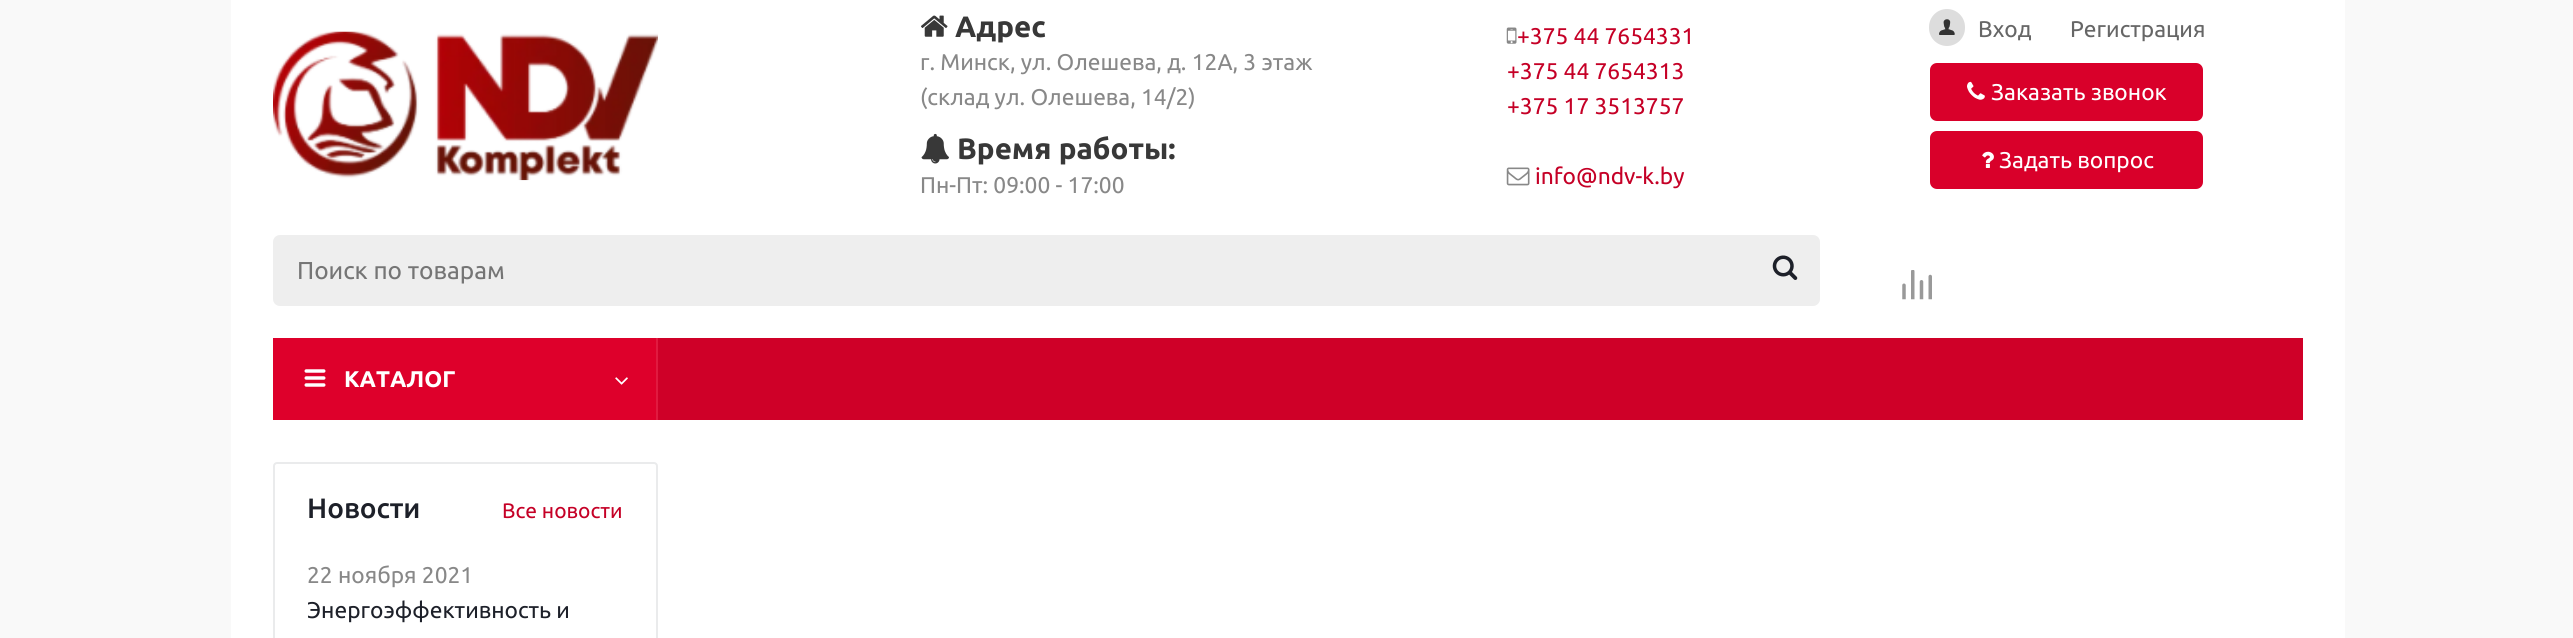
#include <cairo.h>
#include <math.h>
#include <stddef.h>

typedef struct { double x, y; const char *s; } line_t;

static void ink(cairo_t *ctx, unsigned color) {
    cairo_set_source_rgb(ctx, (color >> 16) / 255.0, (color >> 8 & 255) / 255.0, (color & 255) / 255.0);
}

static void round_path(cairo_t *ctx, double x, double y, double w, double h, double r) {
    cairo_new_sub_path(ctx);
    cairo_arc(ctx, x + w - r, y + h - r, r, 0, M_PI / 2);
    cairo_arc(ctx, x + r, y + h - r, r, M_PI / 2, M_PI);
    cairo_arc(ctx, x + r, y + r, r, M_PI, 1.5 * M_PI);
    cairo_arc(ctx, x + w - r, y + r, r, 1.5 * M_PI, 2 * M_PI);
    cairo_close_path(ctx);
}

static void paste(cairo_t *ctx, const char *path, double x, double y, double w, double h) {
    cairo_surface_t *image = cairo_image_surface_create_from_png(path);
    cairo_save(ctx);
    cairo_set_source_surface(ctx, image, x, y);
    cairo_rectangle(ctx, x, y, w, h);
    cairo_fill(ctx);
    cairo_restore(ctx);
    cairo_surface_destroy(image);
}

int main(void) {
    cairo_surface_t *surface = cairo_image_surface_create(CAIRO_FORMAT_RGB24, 2573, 638);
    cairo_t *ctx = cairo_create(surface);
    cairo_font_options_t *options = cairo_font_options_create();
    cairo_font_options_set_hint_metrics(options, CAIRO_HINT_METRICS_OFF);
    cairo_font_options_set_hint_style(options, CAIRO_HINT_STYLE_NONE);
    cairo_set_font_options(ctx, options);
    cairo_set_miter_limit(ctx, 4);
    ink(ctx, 0xF9F9F9);
    cairo_paint(ctx);
    ink(ctx, 0xFFFFFF);
    cairo_rectangle(ctx, 231, 0, 2114, 638);
    cairo_fill(ctx);
    paste(ctx, "media/1.png", 273, 31, 385, 150);
    paste(ctx, "media/2.png", 921, 15, 27, 22);
    cairo_select_font_face(ctx, "Ubuntu", CAIRO_FONT_SLANT_NORMAL, CAIRO_FONT_WEIGHT_BOLD);
    cairo_set_font_size(ctx, 29.5);
    ink(ctx, 0x383838);
    cairo_move_to(ctx, 955, 37);
    cairo_show_text(ctx, "Адрес");
    cairo_select_font_face(ctx, "Ubuntu", CAIRO_FONT_SLANT_NORMAL, CAIRO_FONT_WEIGHT_NORMAL);
    cairo_set_font_size(ctx, 22.75);
    ink(ctx, 0x888888);
    cairo_move_to(ctx, 920, 70);
    cairo_show_text(ctx, "г. Минск, ул. Олешева, д. 12А, 3 этаж");
    cairo_move_to(ctx, 920, 105);
    cairo_show_text(ctx, "(склад ул. Олешева, 14/2)");
    paste(ctx, "media/3.png", 921, 133, 28, 31);
    cairo_select_font_face(ctx, "Ubuntu", CAIRO_FONT_SLANT_NORMAL, CAIRO_FONT_WEIGHT_BOLD);
    cairo_set_font_size(ctx, 29.5);
    ink(ctx, 0x383838);
    cairo_move_to(ctx, 957, 159);
    cairo_show_text(ctx, "Время работы:");
    cairo_select_font_face(ctx, "Ubuntu", CAIRO_FONT_SLANT_NORMAL, CAIRO_FONT_WEIGHT_NORMAL);
    cairo_set_font_size(ctx, 22.75);
    ink(ctx, 0x888888);
    cairo_move_to(ctx, 920, 193);
    cairo_show_text(ctx, "Пн-Пт: 09:00 - 17:00");
    paste(ctx, "media/4.png", 1506, 27, 11, 17);
    ink(ctx, 0xC50026);
    {
        static const line_t items[] = {
            {1517, 44, "+375 44 7654331"},
            {1507, 79, "+375 44 7654313"},
            {1507, 114, "+375 17 3513757"},
        };
        for (size_t i = 0; i < sizeof items / sizeof *items; i++) {
            cairo_move_to(ctx, items[i].x, items[i].y);
            cairo_show_text(ctx, items[i].s);
        }
    }
    paste(ctx, "media/5.png", 1506, 167, 24, 19);
    cairo_move_to(ctx, 1535, 184);
    cairo_show_text(ctx, "info@ndv-k.by");
    ink(ctx, 0xDDDDDD);
    round_path(ctx, 1929, 9, 36, 37, 18);
    cairo_fill(ctx);
    paste(ctx, "media/6.png", 1939, 19, 16, 16);
    ink(ctx, 0x666666);
    cairo_move_to(ctx, 1978, 37);
    cairo_show_text(ctx, "Вход");
    cairo_move_to(ctx, 2070, 37);
    cairo_show_text(ctx, "Регистрация");
    ink(ctx, 0xD9002A);
    round_path(ctx, 1930, 63, 273, 58, 7);
    cairo_fill(ctx);
    paste(ctx, "media/7.png", 1967, 81, 18, 19);
    ink(ctx, 0xFFFFFF);
    cairo_move_to(ctx, 1991, 100);
    cairo_show_text(ctx, "Заказать звонок");
    ink(ctx, 0xD9002A);
    round_path(ctx, 1930, 131, 273, 58, 7);
    cairo_fill(ctx);
    paste(ctx, "media/8.png", 1982, 151, 12, 17);
    ink(ctx, 0xFFFFFF);
    cairo_move_to(ctx, 1999, 168);
    cairo_show_text(ctx, "Задать вопрос");
    ink(ctx, 0xEEEEEE);
    round_path(ctx, 273, 235, 1547, 71, 7);
    cairo_fill(ctx);
    cairo_set_font_size(ctx, 24.5);
    ink(ctx, 0x757575);
    cairo_move_to(ctx, 297, 279);
    cairo_show_text(ctx, "Поиск по товарам");
    paste(ctx, "media/9.png", 1772, 255, 26, 25);
    paste(ctx, "media/10.png", 1902, 270, 30, 30);
    ink(ctx, 0xCF0028);
    cairo_rectangle(ctx, 658, 338, 1645, 82);
    cairo_fill(ctx);
    ink(ctx, 0xDE002B);
    cairo_rectangle(ctx, 273, 338, 383, 82);
    cairo_fill(ctx);
    paste(ctx, "media/11.png", 304, 369, 22, 18);
    cairo_select_font_face(ctx, "Ubuntu", CAIRO_FONT_SLANT_NORMAL, CAIRO_FONT_WEIGHT_BOLD);
    cairo_set_font_size(ctx, 22.75);
    ink(ctx, 0xFFFFFF);
    cairo_move_to(ctx, 344, 387);
    cairo_show_text(ctx, "КАТАЛОГ");
    ink(ctx, 0xE11A40);
    cairo_rectangle(ctx, 656, 338, 2, 82);
    cairo_fill(ctx);
    paste(ctx, "media/12.png", 615, 377, 13, 8);
    round_path(ctx, 274, 463, 383, 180, 3);
    ink(ctx, 0xEAEBEC);
    cairo_stroke(ctx);
    cairo_select_font_face(ctx, "Ubuntu Medium", CAIRO_FONT_SLANT_NORMAL, CAIRO_FONT_WEIGHT_NORMAL);
    cairo_set_font_size(ctx, 28);
    ink(ctx, 0x1D2029);
    cairo_move_to(ctx, 307, 518);
    cairo_show_text(ctx, "Новости");
    cairo_select_font_face(ctx, "Ubuntu", CAIRO_FONT_SLANT_NORMAL, CAIRO_FONT_WEIGHT_NORMAL);
    cairo_set_font_size(ctx, 21);
    ink(ctx, 0xC50026);
    cairo_move_to(ctx, 502, 518);
    cairo_show_text(ctx, "Все новости");
    cairo_set_font_size(ctx, 22.75);
    ink(ctx, 0x888888);
    cairo_move_to(ctx, 307, 583);
    cairo_show_text(ctx, "22 ноября 2021");
    cairo_save(ctx);
    cairo_rectangle(ctx, 308, 557, 315, 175);
    cairo_clip(ctx);
    ink(ctx, 0x1D2029);
    cairo_move_to(ctx, 307, 618);
    cairo_show_text(ctx, "Энергоэффективность и");
    cairo_restore(ctx);
    cairo_surface_write_to_png(surface, "image.png");
    cairo_font_options_destroy(options);
    cairo_destroy(ctx);
    cairo_surface_destroy(surface);
    return 0;
}
